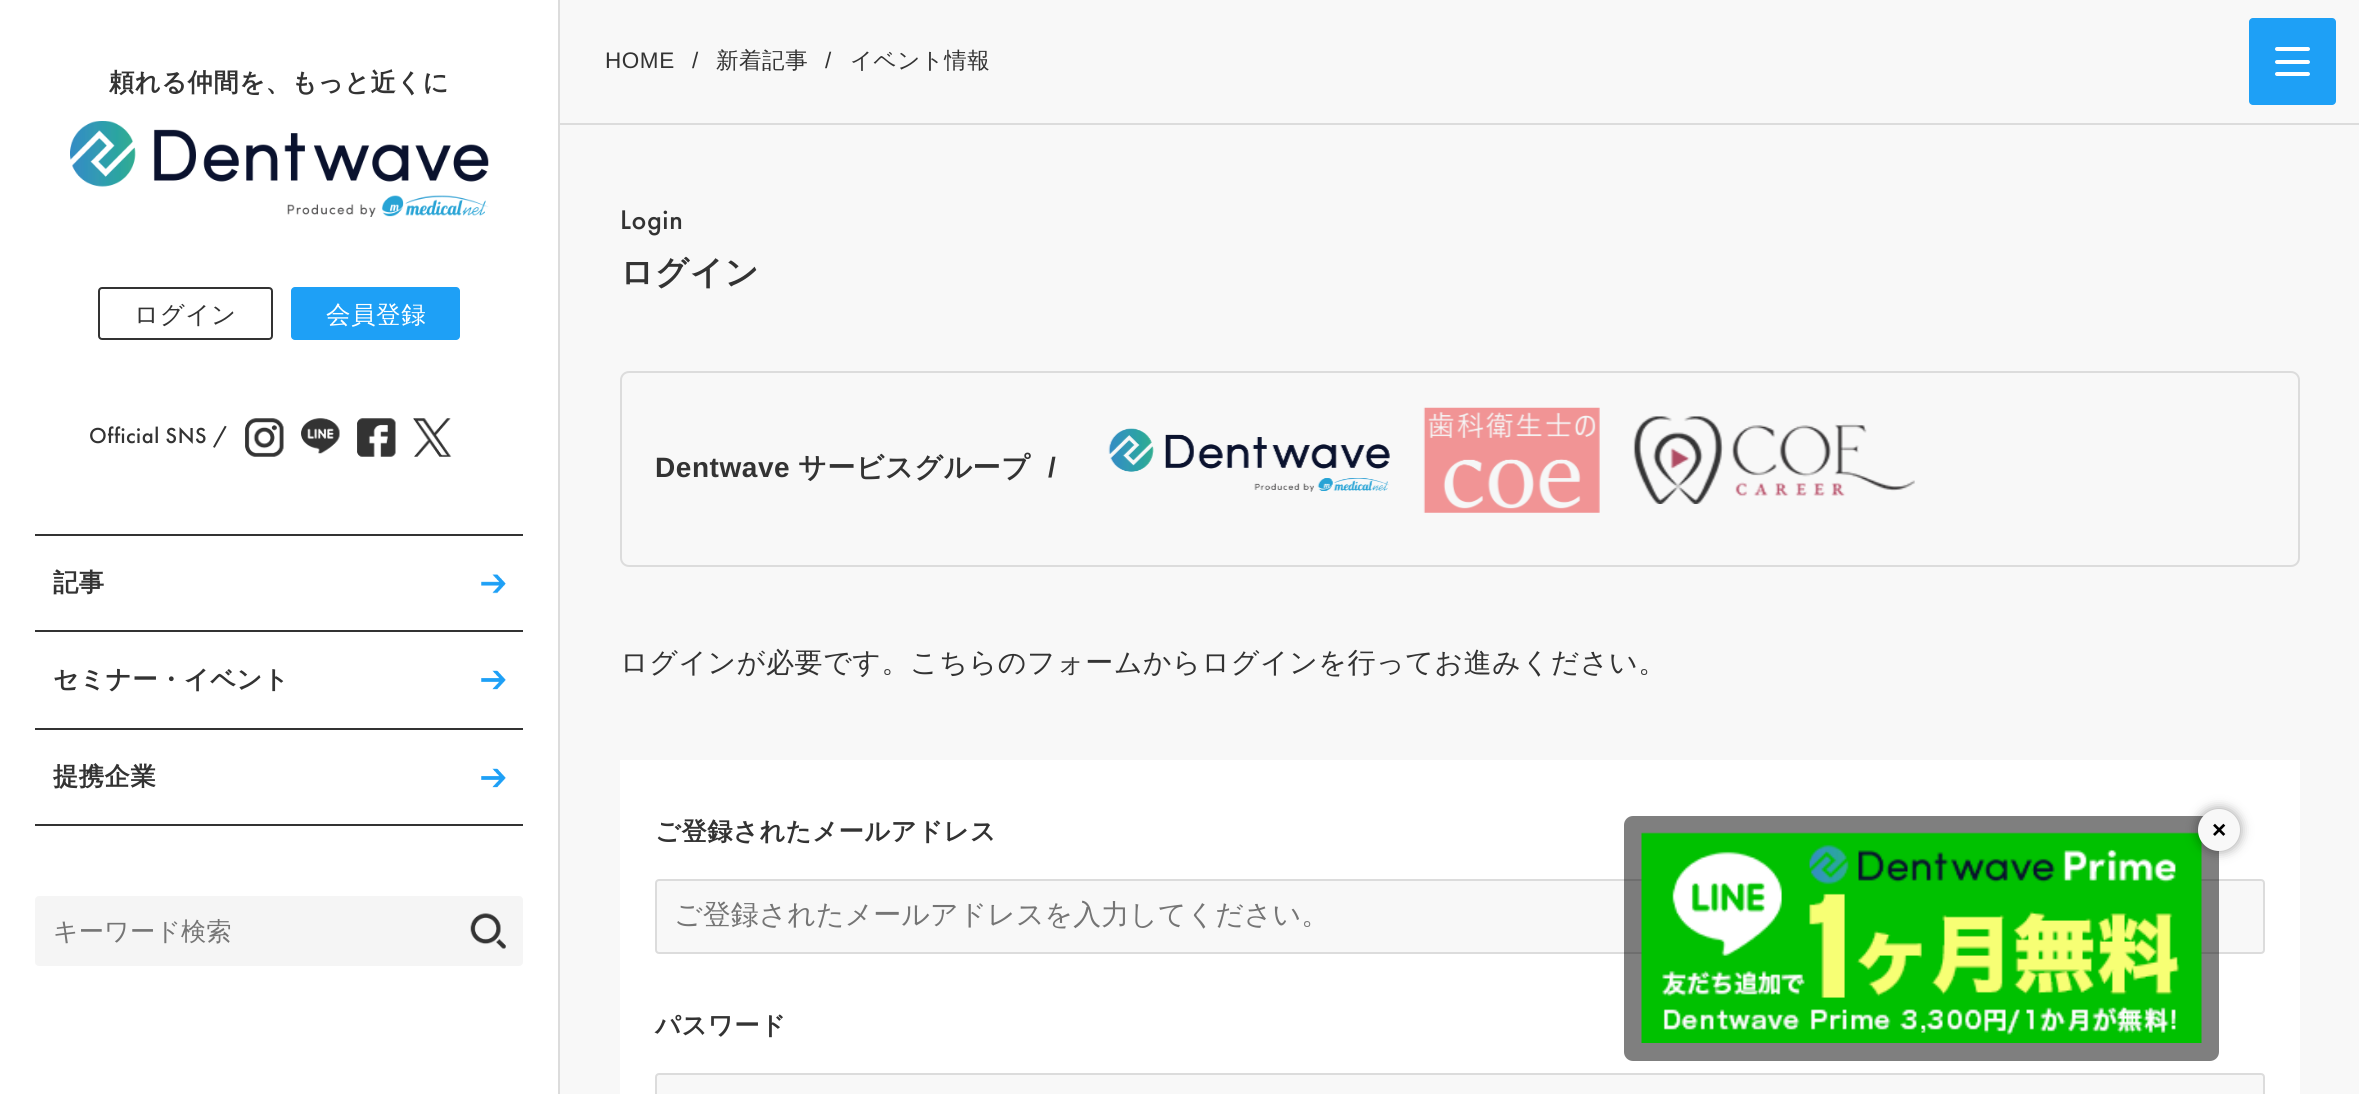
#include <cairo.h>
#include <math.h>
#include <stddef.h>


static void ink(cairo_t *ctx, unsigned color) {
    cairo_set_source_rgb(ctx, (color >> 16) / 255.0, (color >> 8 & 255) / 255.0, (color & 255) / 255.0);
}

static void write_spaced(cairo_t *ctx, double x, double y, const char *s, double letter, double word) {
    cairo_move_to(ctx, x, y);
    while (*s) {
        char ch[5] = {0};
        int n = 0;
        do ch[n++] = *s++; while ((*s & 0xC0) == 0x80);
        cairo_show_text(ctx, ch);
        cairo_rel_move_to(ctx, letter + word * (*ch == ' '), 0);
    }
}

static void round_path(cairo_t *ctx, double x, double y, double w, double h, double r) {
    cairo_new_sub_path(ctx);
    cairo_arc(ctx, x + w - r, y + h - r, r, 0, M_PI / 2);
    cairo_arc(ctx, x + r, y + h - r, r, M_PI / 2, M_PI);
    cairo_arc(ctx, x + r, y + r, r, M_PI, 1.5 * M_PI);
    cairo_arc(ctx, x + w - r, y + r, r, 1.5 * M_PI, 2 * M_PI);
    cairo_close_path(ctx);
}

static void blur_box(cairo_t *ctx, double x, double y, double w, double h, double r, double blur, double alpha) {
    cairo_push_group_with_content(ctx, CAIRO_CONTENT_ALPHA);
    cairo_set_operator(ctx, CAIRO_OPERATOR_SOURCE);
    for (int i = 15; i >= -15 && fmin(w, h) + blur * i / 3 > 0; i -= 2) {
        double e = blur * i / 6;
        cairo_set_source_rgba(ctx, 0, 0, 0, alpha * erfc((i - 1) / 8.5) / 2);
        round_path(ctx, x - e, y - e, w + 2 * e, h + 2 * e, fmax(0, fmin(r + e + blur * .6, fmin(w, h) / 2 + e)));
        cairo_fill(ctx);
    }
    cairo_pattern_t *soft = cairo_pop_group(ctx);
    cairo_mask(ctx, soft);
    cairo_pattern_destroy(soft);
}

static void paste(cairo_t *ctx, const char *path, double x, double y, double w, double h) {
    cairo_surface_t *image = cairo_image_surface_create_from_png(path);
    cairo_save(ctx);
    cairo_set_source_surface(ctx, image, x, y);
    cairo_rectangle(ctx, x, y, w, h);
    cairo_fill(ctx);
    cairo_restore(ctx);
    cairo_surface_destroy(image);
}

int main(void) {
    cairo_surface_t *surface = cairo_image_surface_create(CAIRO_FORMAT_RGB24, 2359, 1094);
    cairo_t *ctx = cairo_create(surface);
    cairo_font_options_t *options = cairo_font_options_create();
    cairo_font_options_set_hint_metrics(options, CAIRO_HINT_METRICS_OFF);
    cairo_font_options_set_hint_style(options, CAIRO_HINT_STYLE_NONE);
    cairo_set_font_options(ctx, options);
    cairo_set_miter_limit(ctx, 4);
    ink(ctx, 0xF8F8F8);
    cairo_paint(ctx);
    ink(ctx, 0xFFFFFF);
    cairo_rectangle(ctx, 0, 0, 558, 1094);
    cairo_fill(ctx);
    ink(ctx, 0xDCDCDC);
    cairo_rectangle(ctx, 558, 0, 2, 1094);
    cairo_fill(ctx);
    cairo_select_font_face(ctx, "WenQuanYi Zen Hei", CAIRO_FONT_SLANT_NORMAL, CAIRO_FONT_WEIGHT_BOLD);
    cairo_set_font_size(ctx, 25.25);
    ink(ctx, 0x333333);
    write_spaced(ctx, 109, 91, "頼れる仲間を、もっと近くに", 0.55, 0);
    paste(ctx, "media/1.png", 70, 121, 419, 96);
    round_path(ctx, 99, 288, 173, 51, 3);
    cairo_stroke(ctx);
    cairo_select_font_face(ctx, "WenQuanYi Zen Hei Medium", CAIRO_FONT_SLANT_NORMAL, CAIRO_FONT_WEIGHT_NORMAL);
    cairo_set_font_size(ctx, 24.5);
    write_spaced(ctx, 134, 323, "ログイン", 0.55, 0);
    ink(ctx, 0x1EA0F6);
    round_path(ctx, 291, 287, 169, 53, 4);
    cairo_fill(ctx);
    ink(ctx, 0xFFFFFF);
    write_spaced(ctx, 326, 323, "会員登録", 0.55, 0);
    cairo_select_font_face(ctx, "Futura PT Medium", CAIRO_FONT_SLANT_NORMAL, CAIRO_FONT_WEIGHT_NORMAL);
    cairo_set_font_size(ctx, 22.5);
    ink(ctx, 0x333333);
    write_spaced(ctx, 89, 443, "Official SNS /", 0.55, 0);
    paste(ctx, "media/2.png", 245, 418, 39, 39);
    paste(ctx, "media/3.png", 301, 418, 39, 36);
    paste(ctx, "media/4.png", 357, 418, 39, 39);
    paste(ctx, "media/5.png", 413, 418, 39, 39);
    cairo_rectangle(ctx, 35, 824, 488, 2);
    cairo_fill(ctx);
    paste(ctx, "media/6.png", 481, 574, 25, 20);
    cairo_rectangle(ctx, 35, 534, 488, 2);
    cairo_fill(ctx);
    cairo_select_font_face(ctx, "WenQuanYi Zen Hei", CAIRO_FONT_SLANT_NORMAL, CAIRO_FONT_WEIGHT_BOLD);
    cairo_set_font_size(ctx, 25.25);
    write_spaced(ctx, 53, 591, "記事", 0.55, 0);
    paste(ctx, "media/7.png", 481, 670, 25, 20);
    cairo_rectangle(ctx, 35, 630, 488, 2);
    cairo_fill(ctx);
    write_spaced(ctx, 53, 688, "セミナー・イベント", 0.55, 0);
    paste(ctx, "media/7.png", 481, 768, 25, 20);
    cairo_rectangle(ctx, 35, 728, 488, 2);
    cairo_fill(ctx);
    write_spaced(ctx, 53, 785, "提携企業", 0.55, 0);
    ink(ctx, 0xF5F5F5);
    round_path(ctx, 35, 896, 488, 70, 4);
    cairo_fill(ctx);
    cairo_select_font_face(ctx, "WenQuanYi Zen Hei Medium", CAIRO_FONT_SLANT_NORMAL, CAIRO_FONT_WEIGHT_NORMAL);
    ink(ctx, 0x757575);
    cairo_move_to(ctx, 53, 940);
    cairo_show_text(ctx, "キーワード検索");
    paste(ctx, "media/8.png", 470, 913, 36, 36);
    ink(ctx, 0xDCDCDC);
    cairo_rectangle(ctx, 560, 123, 1799, 2);
    cairo_fill(ctx);
    cairo_select_font_face(ctx, "Liberation Sans", CAIRO_FONT_SLANT_NORMAL, CAIRO_FONT_WEIGHT_NORMAL);
    cairo_set_font_size(ctx, 22.5);
    ink(ctx, 0x333333);
    write_spaced(ctx, 605, 68, "HOME", 0.55, 0);
    write_spaced(ctx, 692, 68, "/", 0.55, 0);
    cairo_select_font_face(ctx, "WenQuanYi Zen Hei Medium", CAIRO_FONT_SLANT_NORMAL, CAIRO_FONT_WEIGHT_NORMAL);
    write_spaced(ctx, 716, 68, "新着記事", 0.55, 0);
    cairo_select_font_face(ctx, "Liberation Sans", CAIRO_FONT_SLANT_NORMAL, CAIRO_FONT_WEIGHT_NORMAL);
    write_spaced(ctx, 825, 68, "/", 0.55, 0);
    cairo_select_font_face(ctx, "WenQuanYi Zen Hei Medium", CAIRO_FONT_SLANT_NORMAL, CAIRO_FONT_WEIGHT_NORMAL);
    write_spaced(ctx, 850, 68, "イベント情報", 0.55, 0);
    cairo_select_font_face(ctx, "Futura PT Medium", CAIRO_FONT_SLANT_NORMAL, CAIRO_FONT_WEIGHT_NORMAL);
    cairo_set_font_size(ctx, 28);
    write_spaced(ctx, 620, 229, "Login", 0.55, 0);
    cairo_select_font_face(ctx, "WenQuanYi Zen Hei", CAIRO_FONT_SLANT_NORMAL, CAIRO_FONT_WEIGHT_BOLD);
    cairo_set_font_size(ctx, 33.5);
    write_spaced(ctx, 620, 284, "ログイン", 0.55, 0);
    round_path(ctx, 621, 372, 1678, 194, 8);
    ink(ctx, 0xDCDCDC);
    cairo_stroke(ctx);
    cairo_select_font_face(ctx, "Liberation Sans", CAIRO_FONT_SLANT_NORMAL, CAIRO_FONT_WEIGHT_BOLD);
    cairo_set_font_size(ctx, 28);
    ink(ctx, 0x333333);
    write_spaced(ctx, 655, 477, "Dentwave", 0.55, 0);
    cairo_select_font_face(ctx, "WenQuanYi Zen Hei", CAIRO_FONT_SLANT_NORMAL, CAIRO_FONT_WEIGHT_BOLD);
    write_spaced(ctx, 798, 477, "サービスグループ", 0.55, 0);
    cairo_select_font_face(ctx, "Liberation Sans", CAIRO_FONT_SLANT_NORMAL, CAIRO_FONT_WEIGHT_BOLD);
    write_spaced(ctx, 1048, 477, "/", 0.55, 0);
    paste(ctx, "media/9.png", 1108, 428, 282, 64);
    paste(ctx, "media/10.png", 1423, 407, 177, 106);
    paste(ctx, "media/11.png", 1633, 416, 282, 88);
    cairo_select_font_face(ctx, "WenQuanYi Zen Hei Medium", CAIRO_FONT_SLANT_NORMAL, CAIRO_FONT_WEIGHT_NORMAL);
    write_spaced(ctx, 620, 672, "ログインが必要です。こちらのフォームからログインを行ってお進みください。", 0.55, 0);
    ink(ctx, 0xFFFFFF);
    cairo_rectangle(ctx, 620, 760, 1680, 334);
    cairo_fill(ctx);
    cairo_select_font_face(ctx, "WenQuanYi Zen Hei", CAIRO_FONT_SLANT_NORMAL, CAIRO_FONT_WEIGHT_BOLD);
    cairo_set_font_size(ctx, 25.25);
    ink(ctx, 0x333333);
    write_spaced(ctx, 655, 840, "ご登録されたメールアドレス", 0.55, 0);
    ink(ctx, 0xF8F8F8);
    round_path(ctx, 656, 880, 1608, 73, 3);
    cairo_fill_preserve(ctx);
    ink(ctx, 0xDCDCDC);
    cairo_stroke(ctx);
    cairo_select_font_face(ctx, "WenQuanYi Zen Hei Medium", CAIRO_FONT_SLANT_NORMAL, CAIRO_FONT_WEIGHT_NORMAL);
    cairo_set_font_size(ctx, 28);
    ink(ctx, 0x757575);
    cairo_move_to(ctx, 674, 924);
    cairo_show_text(ctx, "ご登録されたメールアドレスを入力してください。");
    cairo_select_font_face(ctx, "WenQuanYi Zen Hei", CAIRO_FONT_SLANT_NORMAL, CAIRO_FONT_WEIGHT_BOLD);
    cairo_set_font_size(ctx, 25.25);
    ink(ctx, 0x333333);
    write_spaced(ctx, 655, 1034, "パスワード", 0.55, 0);
    ink(ctx, 0xF8F8F8);
    round_path(ctx, 656, 1074, 1608, 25, 3);
    cairo_fill_preserve(ctx);
    ink(ctx, 0xDCDCDC);
    cairo_stroke(ctx);
    cairo_set_source_rgba(ctx, 0, 0, 0, 0.5);
    round_path(ctx, 1624, 816, 595, 245, 9);
    cairo_fill(ctx);
    paste(ctx, "media/12.png", 1641, 832, 561, 211);
    ink(ctx, 0x000000);
    blur_box(ctx, 2198, 809, 42, 42, 21, 6, 0.4);
    ink(ctx, 0xF8F8F8);
    cairo_arc(ctx, 2219, 830, 21, 0, 2 * M_PI);
    cairo_fill(ctx);
    cairo_select_font_face(ctx, "Liberation Sans", CAIRO_FONT_SLANT_NORMAL, CAIRO_FONT_WEIGHT_BOLD);
    cairo_set_font_size(ctx, 24.5);
    ink(ctx, 0x000000);
    cairo_move_to(ctx, 2212, 838);
    cairo_show_text(ctx, "×");
    ink(ctx, 0x1EA0F6);
    round_path(ctx, 2249, 18, 87, 87, 4);
    cairo_fill(ctx);
    ink(ctx, 0xFFFFFF);
    round_path(ctx, 2275, 47, 35, 4, 2);
    cairo_fill(ctx);
    round_path(ctx, 2275, 60, 35, 4, 2);
    cairo_fill(ctx);
    round_path(ctx, 2275, 72, 35, 4, 2);
    cairo_fill(ctx);
    cairo_surface_write_to_png(surface, "image.png");
    cairo_font_options_destroy(options);
    cairo_destroy(ctx);
    cairo_surface_destroy(surface);
    return 0;
}
